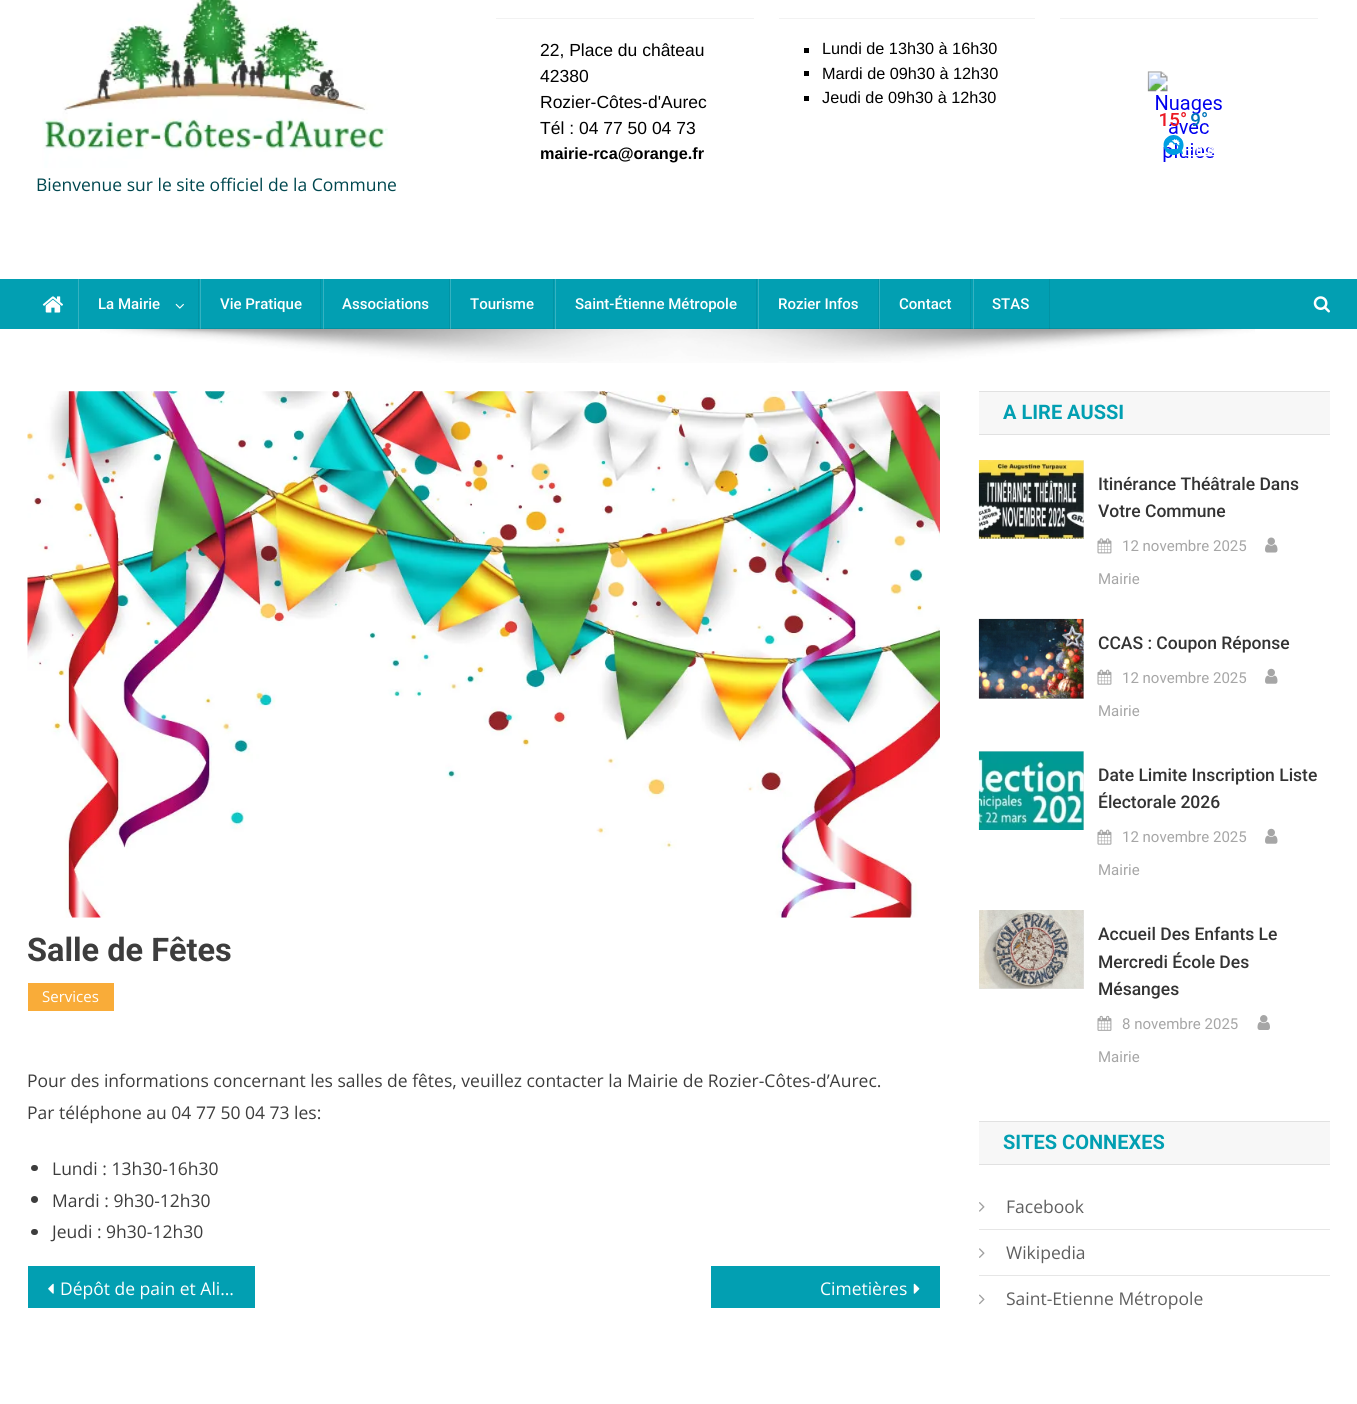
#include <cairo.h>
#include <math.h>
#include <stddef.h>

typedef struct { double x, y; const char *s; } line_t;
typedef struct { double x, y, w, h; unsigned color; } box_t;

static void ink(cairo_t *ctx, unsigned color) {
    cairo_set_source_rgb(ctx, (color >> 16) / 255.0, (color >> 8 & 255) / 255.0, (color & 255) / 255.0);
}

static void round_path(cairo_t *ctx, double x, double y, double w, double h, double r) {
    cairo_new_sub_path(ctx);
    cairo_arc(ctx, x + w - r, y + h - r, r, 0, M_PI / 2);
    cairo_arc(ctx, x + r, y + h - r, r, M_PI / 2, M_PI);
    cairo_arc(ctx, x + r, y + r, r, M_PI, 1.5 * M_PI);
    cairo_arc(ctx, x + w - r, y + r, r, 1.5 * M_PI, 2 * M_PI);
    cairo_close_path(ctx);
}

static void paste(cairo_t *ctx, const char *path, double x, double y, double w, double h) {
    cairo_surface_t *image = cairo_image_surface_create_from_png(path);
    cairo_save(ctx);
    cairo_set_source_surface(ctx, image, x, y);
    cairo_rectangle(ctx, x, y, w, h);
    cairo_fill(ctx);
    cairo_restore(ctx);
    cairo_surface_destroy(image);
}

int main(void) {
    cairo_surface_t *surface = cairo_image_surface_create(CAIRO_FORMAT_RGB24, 1357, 1404);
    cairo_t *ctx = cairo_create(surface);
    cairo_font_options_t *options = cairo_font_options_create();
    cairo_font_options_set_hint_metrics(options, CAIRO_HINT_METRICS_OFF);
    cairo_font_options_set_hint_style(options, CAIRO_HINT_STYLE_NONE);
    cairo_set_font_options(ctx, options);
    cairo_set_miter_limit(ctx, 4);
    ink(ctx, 0xFFFFFF);
    cairo_paint(ctx);
    ink(ctx, 0xF2F2F2);
    cairo_rectangle(ctx, 496, 18, 258, 1);
    cairo_fill(ctx);
    cairo_select_font_face(ctx, "Liberation Sans", CAIRO_FONT_SLANT_NORMAL, CAIRO_FONT_WEIGHT_NORMAL);
    cairo_set_font_size(ctx, 17.5);
    ink(ctx, 0x000000);
    {
        static const line_t items[] = {
            {540, 56, "22, Place du château"},
            {540, 82, "42380"},
            {540, 108, "Rozier-Côtes-d'Aurec"},
            {540, 134, "Tél : 04 77 50 04 73"},
        };
        for (size_t i = 0; i < sizeof items / sizeof *items; i++) {
            cairo_move_to(ctx, items[i].x, items[i].y);
            cairo_show_text(ctx, items[i].s);
        }
    }
    cairo_select_font_face(ctx, "Liberation Sans", CAIRO_FONT_SLANT_NORMAL, CAIRO_FONT_WEIGHT_BOLD);
    cairo_set_font_size(ctx, 16.25);
    cairo_move_to(ctx, 540, 159);
    cairo_show_text(ctx, "mairie-rca@orange.fr");
    ink(ctx, 0xF2F2F2);
    cairo_rectangle(ctx, 779, 18, 256, 1);
    cairo_fill(ctx);
    ink(ctx, 0x000000);
    cairo_rectangle(ctx, 804, 48, 5, 5);
    cairo_fill(ctx);
    cairo_select_font_face(ctx, "Liberation Sans", CAIRO_FONT_SLANT_NORMAL, CAIRO_FONT_WEIGHT_NORMAL);
    cairo_move_to(ctx, 822, 54);
    cairo_show_text(ctx, "Lundi de 13h30 à 16h30");
    cairo_rectangle(ctx, 804, 71, 5, 5);
    cairo_fill(ctx);
    cairo_move_to(ctx, 822, 79);
    cairo_show_text(ctx, "Mardi de 09h30 à 12h30");
    cairo_rectangle(ctx, 804, 96, 5, 5);
    cairo_fill(ctx);
    cairo_move_to(ctx, 822, 103);
    cairo_show_text(ctx, "Jeudi de 09h30 à 12h30");
    ink(ctx, 0xF2F2F2);
    cairo_rectangle(ctx, 1060, 18, 258, 1);
    cairo_fill(ctx);
    paste(ctx, "media/1.png", 1147, 71, 75, 91);
    paste(ctx, "media/2.png", 42, 0, 346, 168);
    cairo_select_font_face(ctx, "Open Sans", CAIRO_FONT_SLANT_NORMAL, CAIRO_FONT_WEIGHT_NORMAL);
    cairo_set_font_size(ctx, 17.5);
    ink(ctx, 0x00474F);
    cairo_move_to(ctx, 36, 191);
    cairo_show_text(ctx, "Bienvenue sur le site officiel de la Commune");
    ink(ctx, 0x029FB2);
    cairo_rectangle(ctx, 0, 279, 1357, 50);
    cairo_fill(ctx);
    paste(ctx, "media/3.png", 42, 296, 21, 17);
    paste(ctx, "media/6.png", 100, 328, 1155, 35);
    cairo_set_source_rgba(ctx, 0, 0, 0, 0.08);
    cairo_rectangle(ctx, 198, 279, 1, 50);
    cairo_fill(ctx);
    ink(ctx, 0x35B2C1);
    cairo_rectangle(ctx, 78, 279, 1, 50);
    cairo_fill(ctx);
    cairo_select_font_face(ctx, "Roboto Medium", CAIRO_FONT_SLANT_NORMAL, CAIRO_FONT_WEIGHT_NORMAL);
    cairo_set_font_size(ctx, 15);
    ink(ctx, 0xFFFFFF);
    cairo_move_to(ctx, 98, 309);
    cairo_show_text(ctx, "La Mairie");
    paste(ctx, "media/4.png", 175, 303, 9, 6);
    cairo_set_source_rgba(ctx, 0, 0, 0, 0.08);
    cairo_rectangle(ctx, 320, 279, 1, 50);
    cairo_fill(ctx);
    cairo_set_source_rgba(ctx, 1, 1, 1, 0.2);
    cairo_rectangle(ctx, 200, 279, 1, 50);
    cairo_fill(ctx);
    ink(ctx, 0xFFFFFF);
    cairo_move_to(ctx, 220, 309);
    cairo_show_text(ctx, "Vie Pratique");
    cairo_set_source_rgba(ctx, 0, 0, 0, 0.08);
    cairo_rectangle(ctx, 449, 279, 1, 50);
    cairo_fill(ctx);
    cairo_set_source_rgba(ctx, 1, 1, 1, 0.2);
    cairo_rectangle(ctx, 323, 279, 1, 50);
    cairo_fill(ctx);
    ink(ctx, 0xFFFFFF);
    cairo_move_to(ctx, 342, 309);
    cairo_show_text(ctx, "Associations");
    cairo_set_source_rgba(ctx, 0, 0, 0, 0.08);
    cairo_rectangle(ctx, 553, 279, 1, 50);
    cairo_fill(ctx);
    cairo_set_source_rgba(ctx, 1, 1, 1, 0.2);
    cairo_rectangle(ctx, 450, 279, 1, 50);
    cairo_fill(ctx);
    ink(ctx, 0xFFFFFF);
    cairo_move_to(ctx, 470, 309);
    cairo_show_text(ctx, "Tourisme");
    cairo_set_source_rgba(ctx, 0, 0, 0, 0.08);
    cairo_rectangle(ctx, 756, 279, 1, 50);
    cairo_fill(ctx);
    cairo_set_source_rgba(ctx, 1, 1, 1, 0.2);
    cairo_rectangle(ctx, 555, 279, 1, 50);
    cairo_fill(ctx);
    ink(ctx, 0xFFFFFF);
    cairo_move_to(ctx, 575, 309);
    cairo_show_text(ctx, "Saint-Étienne Métropole");
    cairo_set_source_rgba(ctx, 0, 0, 0, 0.08);
    cairo_rectangle(ctx, 878, 279, 1, 50);
    cairo_fill(ctx);
    cairo_set_source_rgba(ctx, 1, 1, 1, 0.2);
    cairo_rectangle(ctx, 758, 279, 1, 50);
    cairo_fill(ctx);
    ink(ctx, 0xFFFFFF);
    cairo_move_to(ctx, 778, 309);
    cairo_show_text(ctx, "Rozier Infos");
    cairo_set_source_rgba(ctx, 0, 0, 0, 0.08);
    cairo_rectangle(ctx, 970, 279, 1, 50);
    cairo_fill(ctx);
    cairo_set_source_rgba(ctx, 1, 1, 1, 0.2);
    cairo_rectangle(ctx, 879, 279, 1, 50);
    cairo_fill(ctx);
    ink(ctx, 0xFFFFFF);
    cairo_move_to(ctx, 899, 309);
    cairo_show_text(ctx, "Contact");
    cairo_set_source_rgba(ctx, 0, 0, 0, 0.08);
    cairo_rectangle(ctx, 1049, 279, 1, 50);
    cairo_fill(ctx);
    cairo_set_source_rgba(ctx, 1, 1, 1, 0.2);
    cairo_rectangle(ctx, 973, 279, 1, 50);
    cairo_fill(ctx);
    ink(ctx, 0xFFFFFF);
    cairo_move_to(ctx, 992, 309);
    cairo_show_text(ctx, "STAS");
    paste(ctx, "media/5.png", 1313, 296, 17, 17);
    paste(ctx, "media/7.png", 27, 391, 913, 527);
    cairo_select_font_face(ctx, "Roboto", CAIRO_FONT_SLANT_NORMAL, CAIRO_FONT_WEIGHT_BOLD);
    cairo_set_font_size(ctx, 32.5);
    ink(ctx, 0x3D3D3D);
    cairo_move_to(ctx, 27, 961);
    cairo_show_text(ctx, "Salle de Fêtes");
    ink(ctx, 0xF9AC39);
    cairo_rectangle(ctx, 28, 983, 86, 28);
    cairo_fill(ctx);
    cairo_select_font_face(ctx, "Open Sans", CAIRO_FONT_SLANT_NORMAL, CAIRO_FONT_WEIGHT_NORMAL);
    cairo_set_font_size(ctx, 15);
    ink(ctx, 0xFFFFFF);
    cairo_move_to(ctx, 42, 1002);
    cairo_show_text(ctx, "Services");
    cairo_set_font_size(ctx, 17.5);
    ink(ctx, 0x3D3D3D);
    cairo_move_to(ctx, 27, 1087);
    cairo_show_text(ctx, "Pour des informations concernant les salles de fêtes, veuillez contacter la Mairie de Rozier-Côtes-d’Aurec.");
    cairo_move_to(ctx, 27, 1119);
    cairo_show_text(ctx, "Par téléphone au 04 77 50 04 73 les:");
    round_path(ctx, 31, 1165, 7, 6, 3);
    cairo_fill(ctx);
    cairo_move_to(ctx, 52, 1175);
    cairo_show_text(ctx, "Lundi : 13h30-16h30");
    cairo_new_path(ctx);
    cairo_arc(ctx, 34.5, 1199.5, 3.5, 0, 2 * M_PI);
    cairo_fill(ctx);
    cairo_move_to(ctx, 52, 1207);
    cairo_show_text(ctx, "Mardi : 9h30-12h30");
    round_path(ctx, 31, 1229, 7, 6, 3);
    cairo_fill(ctx);
    cairo_move_to(ctx, 52, 1238);
    cairo_show_text(ctx, "Jeudi : 9h30-12h30");
    ink(ctx, 0x029FB2);
    cairo_rectangle(ctx, 28, 1266, 227, 42);
    cairo_fill(ctx);
    paste(ctx, "media/8.png", 48, 1283, 6, 11);
    ink(ctx, 0xFFFFFF);
    cairo_move_to(ctx, 60, 1295);
    cairo_show_text(ctx, "Dépôt de pain et Ali…");
    ink(ctx, 0x029FB2);
    cairo_rectangle(ctx, 711, 1266, 229, 42);
    cairo_fill(ctx);
    ink(ctx, 0xFFFFFF);
    cairo_move_to(ctx, 820, 1295);
    cairo_show_text(ctx, "Cimetières");
    paste(ctx, "media/9.png", 913, 1283, 7, 11);
    {
        static const box_t items[] = {
            {979, 392, 351, 42, 0xF7F7F7},
            {979, 391, 351, 1, 0xE1E1E1},
            {979, 434, 351, 1, 0xE1E1E1},
        };
        for (size_t i = 0; i < sizeof items / sizeof *items; i++) {
            ink(ctx, items[i].color);
            cairo_rectangle(ctx, items[i].x, items[i].y, items[i].w, items[i].h);
            cairo_fill(ctx);
        }
    }
    cairo_select_font_face(ctx, "Roboto", CAIRO_FONT_SLANT_NORMAL, CAIRO_FONT_WEIGHT_BOLD);
    cairo_set_font_size(ctx, 20);
    ink(ctx, 0x029FB2);
    cairo_move_to(ctx, 1003, 419);
    cairo_show_text(ctx, "A LIRE AUSSI");
    ink(ctx, 0xE5E5E5);
    cairo_rectangle(ctx, 979, 460, 105, 79);
    cairo_fill(ctx);
    paste(ctx, "media/10.png", 978, 460, 106, 79);
    cairo_select_font_face(ctx, "Roboto Medium", CAIRO_FONT_SLANT_NORMAL, CAIRO_FONT_WEIGHT_NORMAL);
    cairo_set_font_size(ctx, 17.5);
    ink(ctx, 0x333333);
    cairo_move_to(ctx, 1098, 490);
    cairo_show_text(ctx, "Itinérance Théâtrale Dans");
    cairo_move_to(ctx, 1098, 517);
    cairo_show_text(ctx, "Votre Commune");
    paste(ctx, "media/11.png", 1097, 538, 15, 16);
    cairo_select_font_face(ctx, "Roboto", CAIRO_FONT_SLANT_NORMAL, CAIRO_FONT_WEIGHT_NORMAL);
    cairo_set_font_size(ctx, 15);
    ink(ctx, 0xA6A6A6);
    cairo_move_to(ctx, 1122, 551);
    cairo_show_text(ctx, "12 novembre 2025");
    paste(ctx, "media/12.png", 1265, 537, 13, 16);
    cairo_move_to(ctx, 1098, 584);
    cairo_show_text(ctx, "Mairie");
    ink(ctx, 0xE5E5E5);
    cairo_rectangle(ctx, 979, 619, 105, 80);
    cairo_fill(ctx);
    paste(ctx, "media/13.png", 978, 618, 106, 81);
    cairo_select_font_face(ctx, "Roboto Medium", CAIRO_FONT_SLANT_NORMAL, CAIRO_FONT_WEIGHT_NORMAL);
    cairo_set_font_size(ctx, 17.5);
    ink(ctx, 0x333333);
    cairo_move_to(ctx, 1098, 649);
    cairo_show_text(ctx, "CCAS : Coupon Réponse");
    paste(ctx, "media/14.png", 1097, 669, 15, 16);
    cairo_select_font_face(ctx, "Roboto", CAIRO_FONT_SLANT_NORMAL, CAIRO_FONT_WEIGHT_NORMAL);
    cairo_set_font_size(ctx, 15);
    ink(ctx, 0xA6A6A6);
    cairo_move_to(ctx, 1122, 683);
    cairo_show_text(ctx, "12 novembre 2025");
    paste(ctx, "media/15.png", 1265, 668, 13, 16);
    cairo_move_to(ctx, 1098, 716);
    cairo_show_text(ctx, "Mairie");
    ink(ctx, 0xE5E5E5);
    cairo_rectangle(ctx, 979, 751, 105, 79);
    cairo_fill(ctx);
    paste(ctx, "media/16.png", 978, 751, 106, 79);
    cairo_select_font_face(ctx, "Roboto Medium", CAIRO_FONT_SLANT_NORMAL, CAIRO_FONT_WEIGHT_NORMAL);
    cairo_set_font_size(ctx, 17.5);
    ink(ctx, 0x333333);
    cairo_move_to(ctx, 1098, 781);
    cairo_show_text(ctx, "Date Limite Inscription Liste");
    cairo_move_to(ctx, 1098, 808);
    cairo_show_text(ctx, "Électorale 2026");
    paste(ctx, "media/14.png", 1097, 829, 15, 16);
    cairo_select_font_face(ctx, "Roboto", CAIRO_FONT_SLANT_NORMAL, CAIRO_FONT_WEIGHT_NORMAL);
    cairo_set_font_size(ctx, 15);
    ink(ctx, 0xA6A6A6);
    cairo_move_to(ctx, 1122, 842);
    cairo_show_text(ctx, "12 novembre 2025");
    paste(ctx, "media/15.png", 1265, 828, 13, 16);
    cairo_move_to(ctx, 1098, 875);
    cairo_show_text(ctx, "Mairie");
    ink(ctx, 0xE5E5E5);
    cairo_rectangle(ctx, 979, 910, 105, 79);
    cairo_fill(ctx);
    paste(ctx, "media/17.png", 979, 910, 105, 79);
    cairo_select_font_face(ctx, "Roboto Medium", CAIRO_FONT_SLANT_NORMAL, CAIRO_FONT_WEIGHT_NORMAL);
    cairo_set_font_size(ctx, 17.5);
    ink(ctx, 0x333333);
    {
        static const line_t items[] = {
            {1098, 940, "Accueil Des Enfants Le"},
            {1098, 968, "Mercredi École Des"},
            {1098, 995, "Mésanges"},
        };
        for (size_t i = 0; i < sizeof items / sizeof *items; i++) {
            cairo_move_to(ctx, items[i].x, items[i].y);
            cairo_show_text(ctx, items[i].s);
        }
    }
    paste(ctx, "media/18.png", 1097, 1015, 15, 16);
    cairo_select_font_face(ctx, "Roboto", CAIRO_FONT_SLANT_NORMAL, CAIRO_FONT_WEIGHT_NORMAL);
    cairo_set_font_size(ctx, 15);
    ink(ctx, 0xA6A6A6);
    cairo_move_to(ctx, 1122, 1029);
    cairo_show_text(ctx, "8 novembre 2025");
    paste(ctx, "media/19.png", 1257, 1015, 13, 15);
    cairo_move_to(ctx, 1098, 1062);
    cairo_show_text(ctx, "Mairie");
    {
        static const box_t items[] = {
            {979, 1122, 351, 42, 0xF7F7F7},
            {979, 1121, 351, 1, 0xE1E1E1},
            {979, 1164, 351, 1, 0xE1E1E1},
        };
        for (size_t i = 0; i < sizeof items / sizeof *items; i++) {
            ink(ctx, items[i].color);
            cairo_rectangle(ctx, items[i].x, items[i].y, items[i].w, items[i].h);
            cairo_fill(ctx);
        }
    }
    cairo_select_font_face(ctx, "Roboto", CAIRO_FONT_SLANT_NORMAL, CAIRO_FONT_WEIGHT_BOLD);
    cairo_set_font_size(ctx, 20);
    ink(ctx, 0x029FB2);
    cairo_move_to(ctx, 1003, 1149);
    cairo_show_text(ctx, "SITES CONNEXES");
    ink(ctx, 0xE6E6E6);
    cairo_rectangle(ctx, 979, 1229, 351, 1);
    cairo_fill(ctx);
    paste(ctx, "media/20.png", 979, 1202, 6, 10);
    cairo_select_font_face(ctx, "Open Sans", CAIRO_FONT_SLANT_NORMAL, CAIRO_FONT_WEIGHT_NORMAL);
    cairo_set_font_size(ctx, 17.5);
    ink(ctx, 0x5F5F5F);
    cairo_move_to(ctx, 1006, 1213);
    cairo_show_text(ctx, "Facebook");
    ink(ctx, 0xE6E6E6);
    cairo_rectangle(ctx, 979, 1275, 351, 1);
    cairo_fill(ctx);
    paste(ctx, "media/21.png", 979, 1248, 6, 10);
    ink(ctx, 0x5F5F5F);
    cairo_move_to(ctx, 1006, 1259);
    cairo_show_text(ctx, "Wikipedia");
    paste(ctx, "media/22.png", 979, 1294, 6, 11);
    cairo_move_to(ctx, 1006, 1305);
    cairo_show_text(ctx, "Saint-Etienne Métropole");
    cairo_surface_write_to_png(surface, "image.png");
    cairo_font_options_destroy(options);
    cairo_destroy(ctx);
    cairo_surface_destroy(surface);
    return 0;
}
